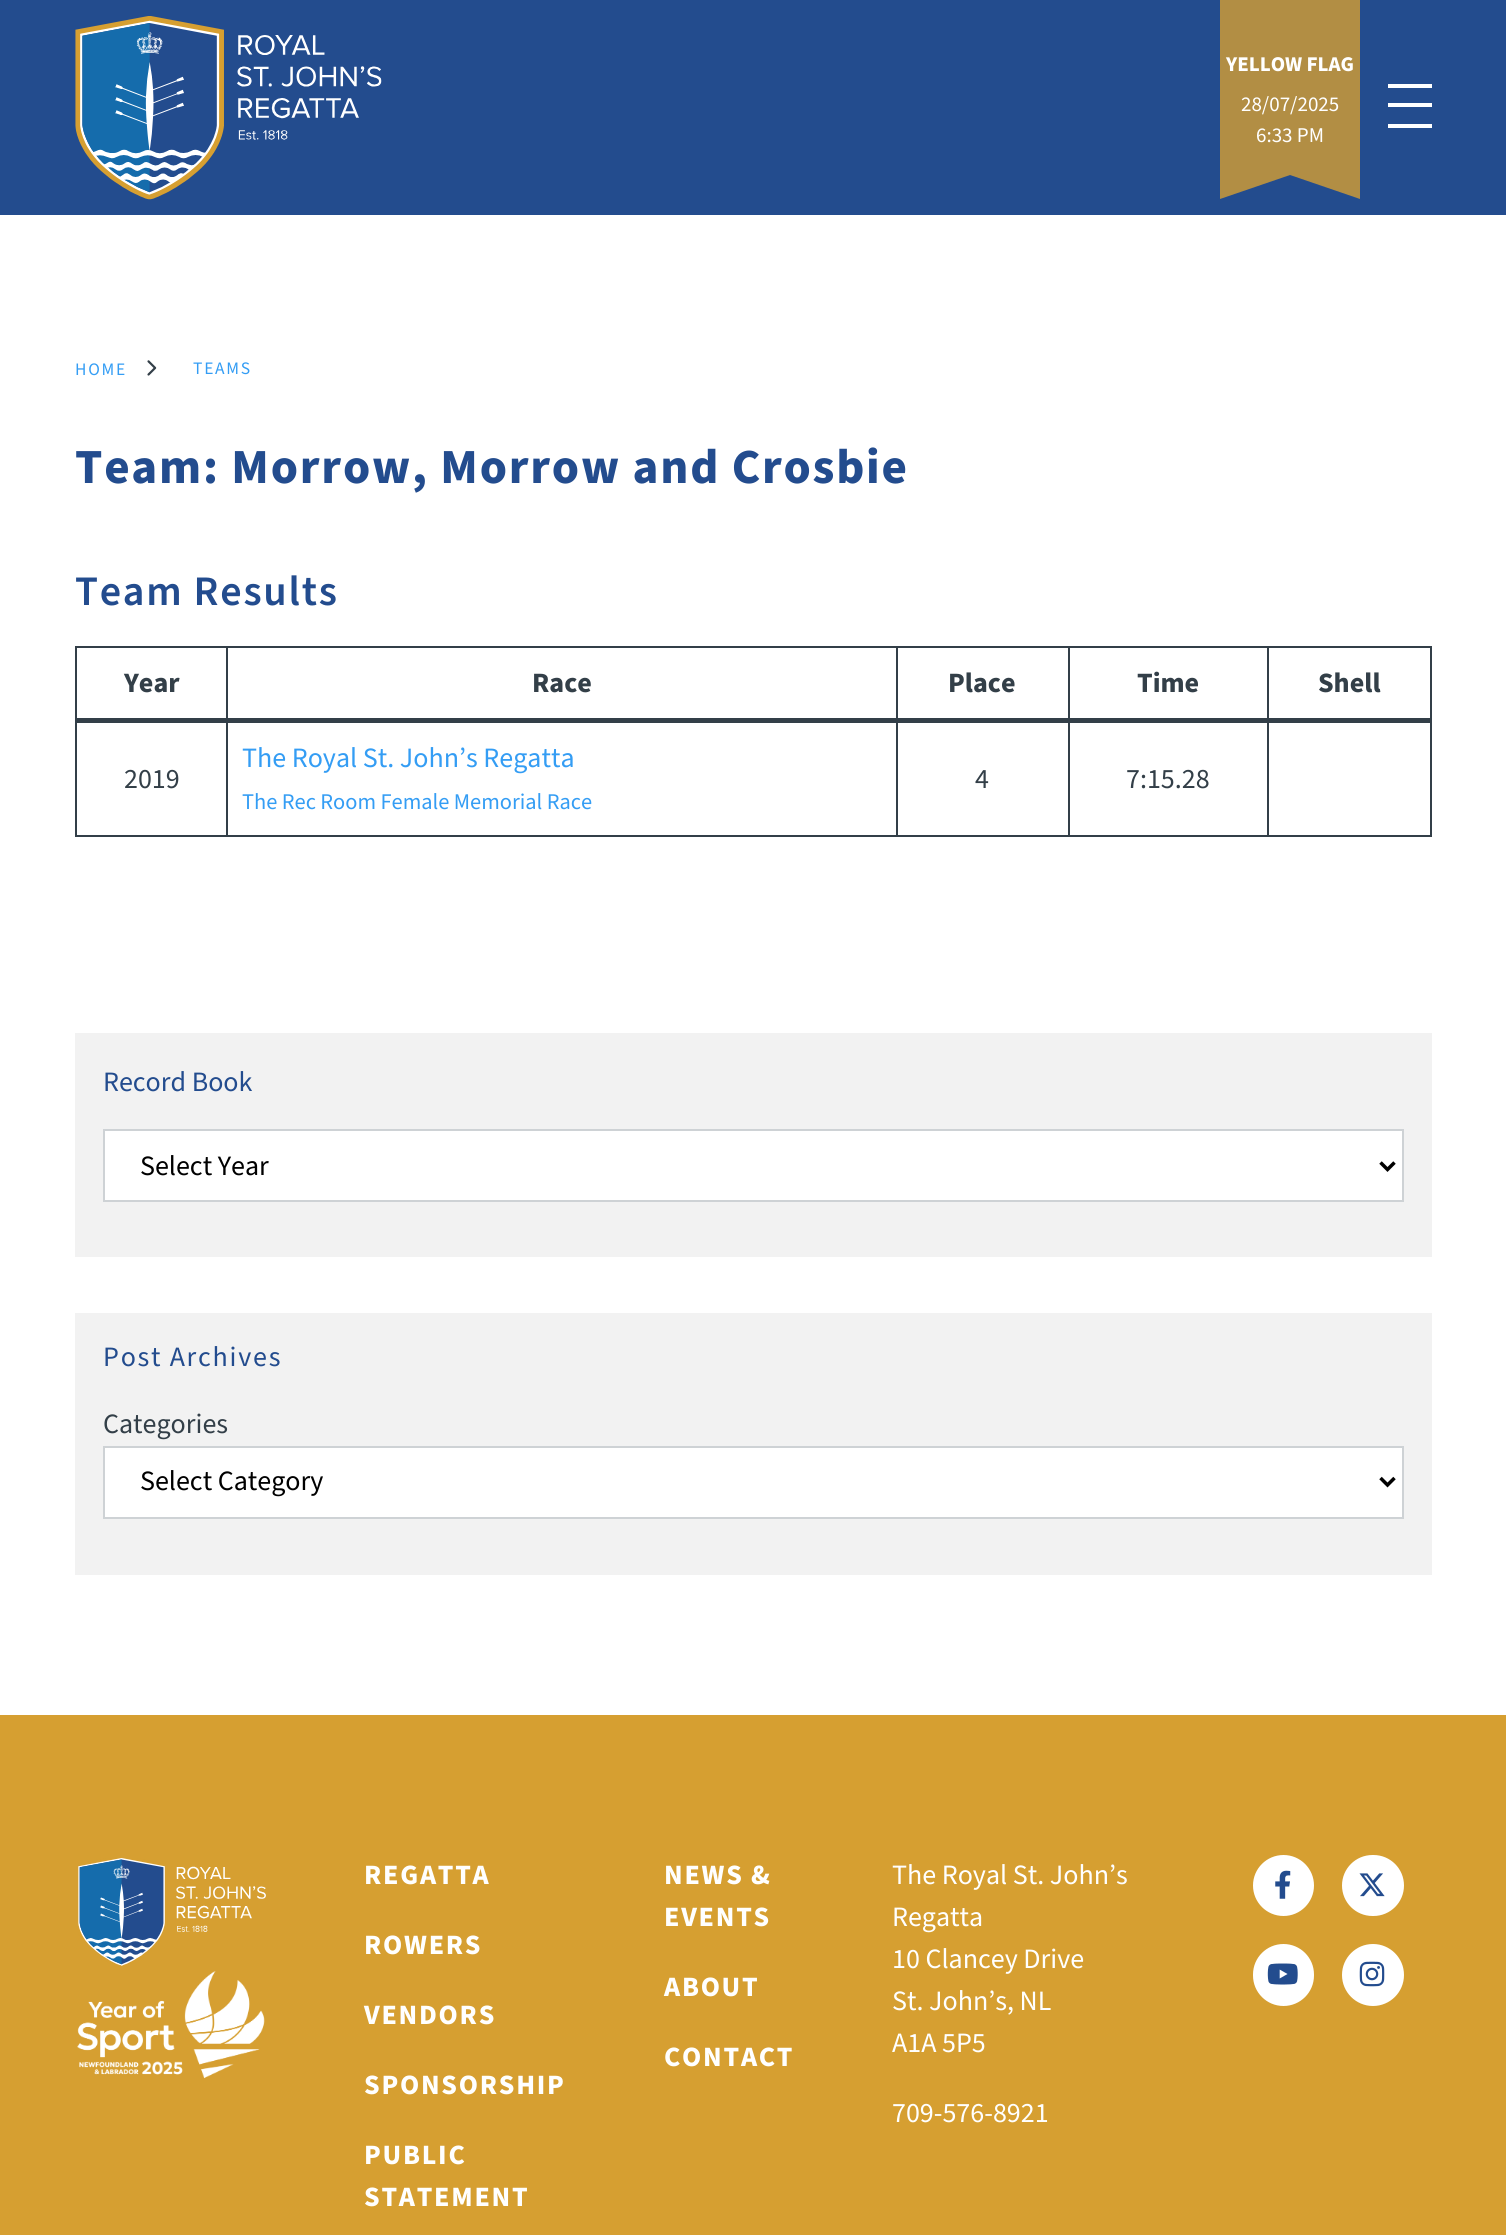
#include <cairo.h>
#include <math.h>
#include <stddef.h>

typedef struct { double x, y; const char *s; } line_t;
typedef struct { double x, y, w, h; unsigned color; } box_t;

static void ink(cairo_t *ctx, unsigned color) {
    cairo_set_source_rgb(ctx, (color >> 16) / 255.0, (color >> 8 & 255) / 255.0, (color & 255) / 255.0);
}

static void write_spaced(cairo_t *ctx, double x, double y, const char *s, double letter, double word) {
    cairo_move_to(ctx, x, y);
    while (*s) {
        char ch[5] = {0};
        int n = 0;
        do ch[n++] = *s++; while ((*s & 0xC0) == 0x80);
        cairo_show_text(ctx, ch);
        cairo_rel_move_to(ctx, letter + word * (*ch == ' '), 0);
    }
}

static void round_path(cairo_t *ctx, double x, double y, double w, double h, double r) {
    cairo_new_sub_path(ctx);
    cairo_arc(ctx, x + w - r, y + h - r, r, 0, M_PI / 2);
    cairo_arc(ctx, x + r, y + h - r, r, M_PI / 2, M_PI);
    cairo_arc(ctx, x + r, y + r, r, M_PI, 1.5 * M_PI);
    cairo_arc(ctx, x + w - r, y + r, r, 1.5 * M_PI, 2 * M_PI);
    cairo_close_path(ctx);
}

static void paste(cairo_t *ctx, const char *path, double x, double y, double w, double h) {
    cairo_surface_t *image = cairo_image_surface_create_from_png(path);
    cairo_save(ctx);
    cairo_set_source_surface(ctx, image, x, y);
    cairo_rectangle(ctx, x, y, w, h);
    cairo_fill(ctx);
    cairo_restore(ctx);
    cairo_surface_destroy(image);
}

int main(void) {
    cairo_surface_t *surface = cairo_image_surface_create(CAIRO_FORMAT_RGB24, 1506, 2235);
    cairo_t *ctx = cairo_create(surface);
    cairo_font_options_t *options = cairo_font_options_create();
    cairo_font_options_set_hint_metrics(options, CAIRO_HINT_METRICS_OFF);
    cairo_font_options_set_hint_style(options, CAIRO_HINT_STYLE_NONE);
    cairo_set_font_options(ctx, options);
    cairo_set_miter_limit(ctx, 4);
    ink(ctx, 0xFFFFFF);
    cairo_paint(ctx);
    ink(ctx, 0x234C8E);
    cairo_rectangle(ctx, 0, 0, 1506, 215);
    cairo_fill(ctx);
    paste(ctx, "media/1.png", 75, 16, 307, 184);
    ink(ctx, 0xB28E44);
    cairo_new_path(ctx);
    cairo_move_to(ctx, 1360, 199);
    cairo_line_to(ctx, 1290, 175);
    cairo_line_to(ctx, 1220, 199);
    cairo_line_to(ctx, 1220, 0);
    cairo_line_to(ctx, 1360, 0);
    cairo_close_path(ctx);
    cairo_fill(ctx);
    cairo_select_font_face(ctx, "Source Sans Pro", CAIRO_FONT_SLANT_NORMAL, CAIRO_FONT_WEIGHT_BOLD);
    cairo_set_font_size(ctx, 21);
    ink(ctx, 0xFFFFFF);
    cairo_move_to(ctx, 1226, 71);
    cairo_show_text(ctx, "YELLOW FLAG");
    cairo_select_font_face(ctx, "Source Sans Pro", CAIRO_FONT_SLANT_NORMAL, CAIRO_FONT_WEIGHT_NORMAL);
    cairo_move_to(ctx, 1241, 111);
    cairo_show_text(ctx, "28/07/2025");
    cairo_move_to(ctx, 1256, 142);
    cairo_show_text(ctx, "6:33 PM");
    {
        static const box_t items[] = {
            {1388, 84, 44, 4, 0xFFFFFF},
            {1388, 103, 44, 4, 0xFFFFFF},
            {1388, 124, 44, 4, 0xFFFFFF},
        };
        for (size_t i = 0; i < sizeof items / sizeof *items; i++) {
            ink(ctx, items[i].color);
            cairo_rectangle(ctx, items[i].x, items[i].y, items[i].w, items[i].h);
            cairo_fill(ctx);
        }
    }
    cairo_set_font_size(ctx, 17.5);
    ink(ctx, 0x349DF4);
    write_spaced(ctx, 75, 375, "HOME", 1.75, 0);
    paste(ctx, "media/2.png", 147, 360, 10, 16);
    write_spaced(ctx, 193, 374, "TEAMS", 1.75, 0);
    cairo_select_font_face(ctx, "Source Sans Pro", CAIRO_FONT_SLANT_NORMAL, CAIRO_FONT_WEIGHT_BOLD);
    cairo_set_font_size(ctx, 49);
    ink(ctx, 0x234C8E);
    write_spaced(ctx, 75, 483, "Team: Morrow, Morrow and Crosbie", 1.75, 0);
    cairo_select_font_face(ctx, "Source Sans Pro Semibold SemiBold", CAIRO_FONT_SLANT_NORMAL, CAIRO_FONT_WEIGHT_NORMAL);
    cairo_set_font_size(ctx, 42);
    write_spaced(ctx, 75, 605, "Team Results", 1.75, 0);
    {
        static const box_t items[] = {
            {1267, 646, 165, 2, 0x333F48},
            {1430, 719, 2, 118, 0x333F48},
            {1267, 835, 165, 2, 0x333F48},
            {1267, 719, 2, 118, 0x333F48},
            {1267, 646, 2, 75, 0x333F48},
            {1068, 646, 201, 2, 0x333F48},
            {1068, 835, 201, 2, 0x333F48},
            {1068, 719, 2, 118, 0x333F48},
            {1068, 646, 2, 75, 0x333F48},
            {896, 646, 173, 2, 0x333F48},
            {896, 835, 173, 2, 0x333F48},
            {896, 719, 2, 118, 0x333F48},
            {896, 646, 2, 75, 0x333F48},
            {226, 646, 672, 2, 0x333F48},
            {226, 835, 672, 2, 0x333F48},
            {226, 719, 2, 118, 0x333F48},
            {226, 646, 2, 75, 0x333F48},
            {75, 646, 153, 2, 0x333F48},
            {75, 835, 153, 2, 0x333F48},
            {75, 719, 2, 118, 0x333F48},
            {75, 646, 2, 75, 0x333F48},
            {1430, 646, 2, 75, 0x333F48},
            {75, 718, 1357, 5, 0x333F48},
        };
        for (size_t i = 0; i < sizeof items / sizeof *items; i++) {
            ink(ctx, items[i].color);
            cairo_rectangle(ctx, items[i].x, items[i].y, items[i].w, items[i].h);
            cairo_fill(ctx);
        }
    }
    cairo_select_font_face(ctx, "Source Sans Pro", CAIRO_FONT_SLANT_NORMAL, CAIRO_FONT_WEIGHT_BOLD);
    cairo_set_font_size(ctx, 28);
    {
        static const line_t items[] = {
            {124, 692, "Year"},
            {532, 692, "Race"},
            {948, 692, "Place"},
            {1137, 692, "Time"},
            {1318, 692, "Shell"},
        };
        for (size_t i = 0; i < sizeof items / sizeof *items; i++) {
            cairo_move_to(ctx, items[i].x, items[i].y);
            cairo_show_text(ctx, items[i].s);
        }
    }
    cairo_select_font_face(ctx, "Source Sans Pro", CAIRO_FONT_SLANT_NORMAL, CAIRO_FONT_WEIGHT_NORMAL);
    cairo_move_to(ctx, 124, 788);
    cairo_show_text(ctx, "2019");
    ink(ctx, 0x349DF4);
    cairo_move_to(ctx, 242, 767);
    cairo_show_text(ctx, "The Royal St. John’s Regatta");
    cairo_set_font_size(ctx, 22.4);
    cairo_move_to(ctx, 242, 809);
    cairo_show_text(ctx, "The Rec Room Female Memorial Race");
    cairo_set_font_size(ctx, 28);
    ink(ctx, 0x333F48);
    cairo_move_to(ctx, 975, 788);
    cairo_show_text(ctx, "4");
    cairo_move_to(ctx, 1126, 788);
    cairo_show_text(ctx, "7:15.28");
    ink(ctx, 0xF2F2F2);
    cairo_rectangle(ctx, 75, 1033, 1357, 224);
    cairo_fill(ctx);
    ink(ctx, 0x234C8E);
    cairo_move_to(ctx, 103, 1091);
    cairo_show_text(ctx, "Record Book");
    ink(ctx, 0xFFFFFF);
    cairo_rectangle(ctx, 104, 1130, 1299, 71);
    cairo_fill_preserve(ctx);
    ink(ctx, 0xCED2D5);
    cairo_stroke(ctx);
    cairo_new_path(ctx);
    cairo_move_to(ctx, 1380.5, 1162.5);
    cairo_line_to(ctx, 1387.5, 1169.5);
    cairo_line_to(ctx, 1394.5, 1162.5);
    ink(ctx, 0x000000);
    cairo_set_line_width(ctx, 3.5);
    cairo_stroke(ctx);
    cairo_move_to(ctx, 140, 1175);
    cairo_show_text(ctx, "Select Year");
    ink(ctx, 0xF2F2F2);
    cairo_rectangle(ctx, 75, 1313, 1357, 262);
    cairo_fill(ctx);
    ink(ctx, 0x234C8E);
    write_spaced(ctx, 103, 1366, "Post Archives", 1.75, 0);
    ink(ctx, 0x333F48);
    cairo_move_to(ctx, 103, 1433);
    cairo_show_text(ctx, "Categories");
    ink(ctx, 0xFFFFFF);
    cairo_rectangle(ctx, 104, 1447, 1299, 71);
    cairo_fill_preserve(ctx);
    ink(ctx, 0xCED2D5);
    cairo_set_line_width(ctx, 2);
    cairo_stroke(ctx);
    cairo_new_path(ctx);
    cairo_move_to(ctx, 1380.5, 1478);
    cairo_line_to(ctx, 1387.5, 1485);
    cairo_line_to(ctx, 1394.5, 1478);
    ink(ctx, 0x000000);
    cairo_set_line_width(ctx, 3.5);
    cairo_stroke(ctx);
    cairo_move_to(ctx, 140, 1490);
    cairo_show_text(ctx, "Select Category");
    ink(ctx, 0xD69F31);
    cairo_rectangle(ctx, 0, 1715, 1506, 520);
    cairo_fill(ctx);
    paste(ctx, "media/3.png", 78, 1858, 188, 108);
    paste(ctx, "media/4.png", 77, 1971, 188, 108);
    cairo_select_font_face(ctx, "Source Sans Pro", CAIRO_FONT_SLANT_NORMAL, CAIRO_FONT_WEIGHT_BOLD);
    ink(ctx, 0xFFFFFF);
    {
        static const line_t items[] = {
            {364, 1884, "REGATTA"},
            {364, 1954, "ROWERS"},
            {364, 2024, "VENDORS"},
            {364, 2094, "SPONSORSHIP"},
            {364, 2164, "PUBLIC"},
            {364, 2206, "STATEMENT"},
            {664, 1884, "NEWS &"},
            {664, 1926, "EVENTS"},
            {664, 1996, "ABOUT"},
            {664, 2066, "CONTACT"},
        };
        for (size_t i = 0; i < sizeof items / sizeof *items; i++) {
            write_spaced(ctx, items[i].x, items[i].y, items[i].s, 1.75, 0);
        }
    }
    cairo_select_font_face(ctx, "Source Sans Pro", CAIRO_FONT_SLANT_NORMAL, CAIRO_FONT_WEIGHT_NORMAL);
    {
        static const line_t items[] = {
            {892, 1884, "The Royal St. John’s"},
            {892, 1926, "Regatta"},
            {892, 1968, "10 Clancey Drive"},
            {892, 2010, "St. John’s, NL"},
            {892, 2052, "A1A 5P5"},
            {892, 2122, "709-576-8921"},
        };
        for (size_t i = 0; i < sizeof items / sizeof *items; i++) {
            cairo_move_to(ctx, items[i].x, items[i].y);
            cairo_show_text(ctx, items[i].s);
        }
    }
    cairo_new_path(ctx);
    cairo_arc(ctx, 1283.5, 1885.5, 28.5, 0, 2 * M_PI);
    cairo_fill_preserve(ctx);
    cairo_set_line_width(ctx, 4);
    cairo_stroke(ctx);
    paste(ctx, "media/5.png", 1275, 1870, 16, 29);
    round_path(ctx, 1344, 1857, 58, 57, 28.5);
    cairo_fill_preserve(ctx);
    cairo_stroke(ctx);
    paste(ctx, "media/6.png", 1359, 1873, 26, 24);
    round_path(ctx, 1255, 1946, 57, 58, 28.5);
    cairo_fill_preserve(ctx);
    cairo_stroke(ctx);
    paste(ctx, "media/7.png", 1267, 1963, 31, 22);
    cairo_arc(ctx, 1373, 1975, 29, 0, 2 * M_PI);
    cairo_fill_preserve(ctx);
    cairo_stroke(ctx);
    paste(ctx, "media/8.png", 1359, 1961, 26, 26);
    cairo_surface_write_to_png(surface, "image.png");
    cairo_font_options_destroy(options);
    cairo_destroy(ctx);
    cairo_surface_destroy(surface);
    return 0;
}
